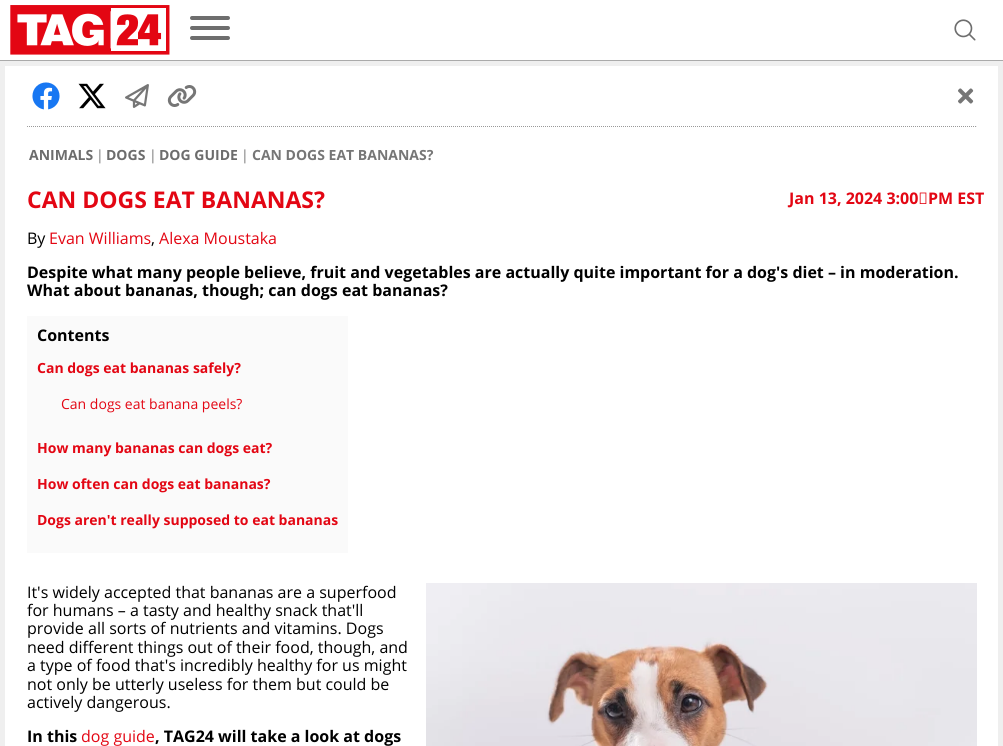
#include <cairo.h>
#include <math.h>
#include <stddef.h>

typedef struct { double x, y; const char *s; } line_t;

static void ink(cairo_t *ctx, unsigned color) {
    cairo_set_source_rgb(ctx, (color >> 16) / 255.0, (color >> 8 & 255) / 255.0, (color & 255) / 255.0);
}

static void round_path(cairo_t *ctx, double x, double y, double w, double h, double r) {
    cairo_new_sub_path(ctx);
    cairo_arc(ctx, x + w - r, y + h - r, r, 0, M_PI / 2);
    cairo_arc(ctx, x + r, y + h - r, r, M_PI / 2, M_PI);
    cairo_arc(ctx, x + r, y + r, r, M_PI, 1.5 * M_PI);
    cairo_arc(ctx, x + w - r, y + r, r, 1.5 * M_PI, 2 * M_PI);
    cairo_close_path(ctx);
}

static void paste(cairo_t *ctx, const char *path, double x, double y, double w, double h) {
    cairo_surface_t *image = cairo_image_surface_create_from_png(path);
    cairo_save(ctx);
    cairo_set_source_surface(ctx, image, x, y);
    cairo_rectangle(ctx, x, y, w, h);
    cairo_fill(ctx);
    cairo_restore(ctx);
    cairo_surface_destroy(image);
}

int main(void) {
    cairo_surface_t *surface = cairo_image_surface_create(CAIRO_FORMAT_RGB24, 1003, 746);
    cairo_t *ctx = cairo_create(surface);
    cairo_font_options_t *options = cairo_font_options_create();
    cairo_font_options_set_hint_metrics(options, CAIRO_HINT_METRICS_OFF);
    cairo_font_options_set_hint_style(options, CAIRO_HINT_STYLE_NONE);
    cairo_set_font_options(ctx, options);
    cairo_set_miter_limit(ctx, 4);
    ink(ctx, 0xEFEFEF);
    cairo_paint(ctx);
    ink(ctx, 0xFFFFFF);
    cairo_rectangle(ctx, 0, 0, 1003, 60);
    cairo_fill(ctx);
    ink(ctx, 0xAAAAAA);
    cairo_rectangle(ctx, 0, 60, 1003, 1);
    cairo_fill(ctx);
    paste(ctx, "media/1.png", 10, 5, 160, 50);
    ink(ctx, 0x6E6E6E);
    round_path(ctx, 190, 26, 40, 4, 2);
    cairo_fill(ctx);
    round_path(ctx, 190, 16, 40, 4, 2);
    cairo_fill(ctx);
    round_path(ctx, 190, 36, 40, 4, 2);
    cairo_fill(ctx);
    paste(ctx, "media/2.png", 954, 19, 22, 22);
    ink(ctx, 0xFFFFFF);
    cairo_rectangle(ctx, 5, 66, 993, 680);
    cairo_fill(ctx);
    paste(ctx, "media/3.png", 32, 82, 28, 28);
    paste(ctx, "media/4.png", 78, 83, 28, 26);
    paste(ctx, "media/5.png", 125, 84, 24, 24);
    paste(ctx, "media/6.png", 167, 85, 30, 22);
    paste(ctx, "media/7.png", 958, 88, 16, 16);
    cairo_new_path(ctx);
    cairo_move_to(ctx, 27, 126.5);
    cairo_line_to(ctx, 977, 126.5);
    ink(ctx, 0x999999);
    cairo_set_line_width(ctx, 1);
    cairo_set_dash(ctx, (double[]){1, 1}, 2, 0);
    cairo_stroke(ctx);
    ink(ctx, 0xEEEEEE);
    cairo_rectangle(ctx, 976, 126, 1, 1);
    cairo_fill(ctx);
    ink(ctx, 0x9F9F9F);
    cairo_rectangle(ctx, 27, 126, 1, 1);
    cairo_fill(ctx);
    cairo_select_font_face(ctx, "Open Sans", CAIRO_FONT_SLANT_NORMAL, CAIRO_FONT_WEIGHT_BOLD);
    cairo_set_font_size(ctx, 14);
    ink(ctx, 0x6C6C6C);
    cairo_move_to(ctx, 29, 160);
    cairo_show_text(ctx, "ANIMALS");
    cairo_select_font_face(ctx, "Open Sans", CAIRO_FONT_SLANT_NORMAL, CAIRO_FONT_WEIGHT_NORMAL);
    ink(ctx, 0x767676);
    cairo_move_to(ctx, 96, 160);
    cairo_show_text(ctx, "|");
    cairo_select_font_face(ctx, "Open Sans", CAIRO_FONT_SLANT_NORMAL, CAIRO_FONT_WEIGHT_BOLD);
    ink(ctx, 0x6C6C6C);
    cairo_move_to(ctx, 106, 160);
    cairo_show_text(ctx, "DOGS");
    cairo_select_font_face(ctx, "Open Sans", CAIRO_FONT_SLANT_NORMAL, CAIRO_FONT_WEIGHT_NORMAL);
    ink(ctx, 0x767676);
    cairo_move_to(ctx, 149, 160);
    cairo_show_text(ctx, "|");
    cairo_select_font_face(ctx, "Open Sans", CAIRO_FONT_SLANT_NORMAL, CAIRO_FONT_WEIGHT_BOLD);
    ink(ctx, 0x6C6C6C);
    cairo_move_to(ctx, 159, 160);
    cairo_show_text(ctx, "DOG GUIDE");
    cairo_select_font_face(ctx, "Open Sans", CAIRO_FONT_SLANT_NORMAL, CAIRO_FONT_WEIGHT_NORMAL);
    ink(ctx, 0x767676);
    cairo_move_to(ctx, 241, 160);
    cairo_show_text(ctx, "|");
    cairo_select_font_face(ctx, "Open Sans", CAIRO_FONT_SLANT_NORMAL, CAIRO_FONT_WEIGHT_BOLD);
    cairo_move_to(ctx, 252, 160);
    cairo_show_text(ctx, "CAN DOGS EAT BANANAS?");
    cairo_set_font_size(ctx, 23);
    ink(ctx, 0xE30613);
    cairo_move_to(ctx, 27, 208);
    cairo_show_text(ctx, "CAN DOGS EAT BANANAS?");
    cairo_set_font_size(ctx, 16);
    cairo_move_to(ctx, 789, 204);
    cairo_show_text(ctx, "Jan 13, 2024 3:00 PM EST");
    cairo_select_font_face(ctx, "Open Sans", CAIRO_FONT_SLANT_NORMAL, CAIRO_FONT_WEIGHT_NORMAL);
    ink(ctx, 0x000000);
    cairo_move_to(ctx, 27, 244);
    cairo_show_text(ctx, "By");
    ink(ctx, 0xE30613);
    cairo_move_to(ctx, 49, 244);
    cairo_show_text(ctx, "Evan Williams");
    ink(ctx, 0x000000);
    cairo_move_to(ctx, 151, 244);
    cairo_show_text(ctx, ",");
    ink(ctx, 0xE30613);
    cairo_move_to(ctx, 159, 244);
    cairo_show_text(ctx, "Alexa Moustaka");
    cairo_select_font_face(ctx, "Open Sans", CAIRO_FONT_SLANT_NORMAL, CAIRO_FONT_WEIGHT_BOLD);
    ink(ctx, 0x000000);
    cairo_move_to(ctx, 27, 278);
    cairo_show_text(ctx, "Despite what many people believe, fruit and vegetables are actually quite important for a dog's diet – in moderation.");
    cairo_move_to(ctx, 27, 296);
    cairo_show_text(ctx, "What about bananas, though; can dogs eat bananas?");
    ink(ctx, 0xFAFAFA);
    cairo_rectangle(ctx, 27, 316, 321, 237);
    cairo_fill(ctx);
    ink(ctx, 0x000000);
    cairo_move_to(ctx, 37, 341);
    cairo_show_text(ctx, "Contents");
    cairo_set_font_size(ctx, 14);
    ink(ctx, 0xE30613);
    cairo_move_to(ctx, 37, 373);
    cairo_show_text(ctx, "Can dogs eat bananas safely?");
    cairo_select_font_face(ctx, "Open Sans", CAIRO_FONT_SLANT_NORMAL, CAIRO_FONT_WEIGHT_NORMAL);
    cairo_move_to(ctx, 61, 409);
    cairo_show_text(ctx, "Can dogs eat banana peels?");
    cairo_select_font_face(ctx, "Open Sans", CAIRO_FONT_SLANT_NORMAL, CAIRO_FONT_WEIGHT_BOLD);
    {
        static const line_t items[] = {
            {37, 453, "How many bananas can dogs eat?"},
            {37, 489, "How often can dogs eat bananas?"},
            {37, 525, "Dogs aren't really supposed to eat bananas"},
        };
        for (size_t i = 0; i < sizeof items / sizeof *items; i++) {
            cairo_move_to(ctx, items[i].x, items[i].y);
            cairo_show_text(ctx, items[i].s);
        }
    }
    cairo_select_font_face(ctx, "Open Sans", CAIRO_FONT_SLANT_NORMAL, CAIRO_FONT_WEIGHT_NORMAL);
    cairo_set_font_size(ctx, 16);
    ink(ctx, 0x000000);
    {
        static const line_t items[] = {
            {27, 598, "It's widely accepted that bananas are a superfood"},
            {27, 616, "for humans – a tasty and healthy snack that'll"},
            {27, 634, "provide all sorts of nutrients and vitamins. Dogs"},
            {27, 653, "need different things out of their food, though, and"},
            {27, 671, "a type of food that's incredibly healthy for us might"},
            {27, 690, "not only be utterly useless for them but could be"},
            {27, 708, "actively dangerous."},
        };
        for (size_t i = 0; i < sizeof items / sizeof *items; i++) {
            cairo_move_to(ctx, items[i].x, items[i].y);
            cairo_show_text(ctx, items[i].s);
        }
    }
    paste(ctx, "media/8.png", 426, 583, 551, 163);
    cairo_select_font_face(ctx, "Open Sans", CAIRO_FONT_SLANT_NORMAL, CAIRO_FONT_WEIGHT_BOLD);
    cairo_move_to(ctx, 27, 742);
    cairo_show_text(ctx, "In this");
    cairo_select_font_face(ctx, "Open Sans", CAIRO_FONT_SLANT_NORMAL, CAIRO_FONT_WEIGHT_NORMAL);
    ink(ctx, 0xE30613);
    cairo_move_to(ctx, 81, 742);
    cairo_show_text(ctx, "dog guide");
    cairo_select_font_face(ctx, "Open Sans", CAIRO_FONT_SLANT_NORMAL, CAIRO_FONT_WEIGHT_BOLD);
    ink(ctx, 0x000000);
    cairo_move_to(ctx, 155, 742);
    cairo_show_text(ctx, ", TAG24 will take a look at dogs");
    cairo_surface_write_to_png(surface, "image.png");
    cairo_font_options_destroy(options);
    cairo_destroy(ctx);
    cairo_surface_destroy(surface);
    return 0;
}
